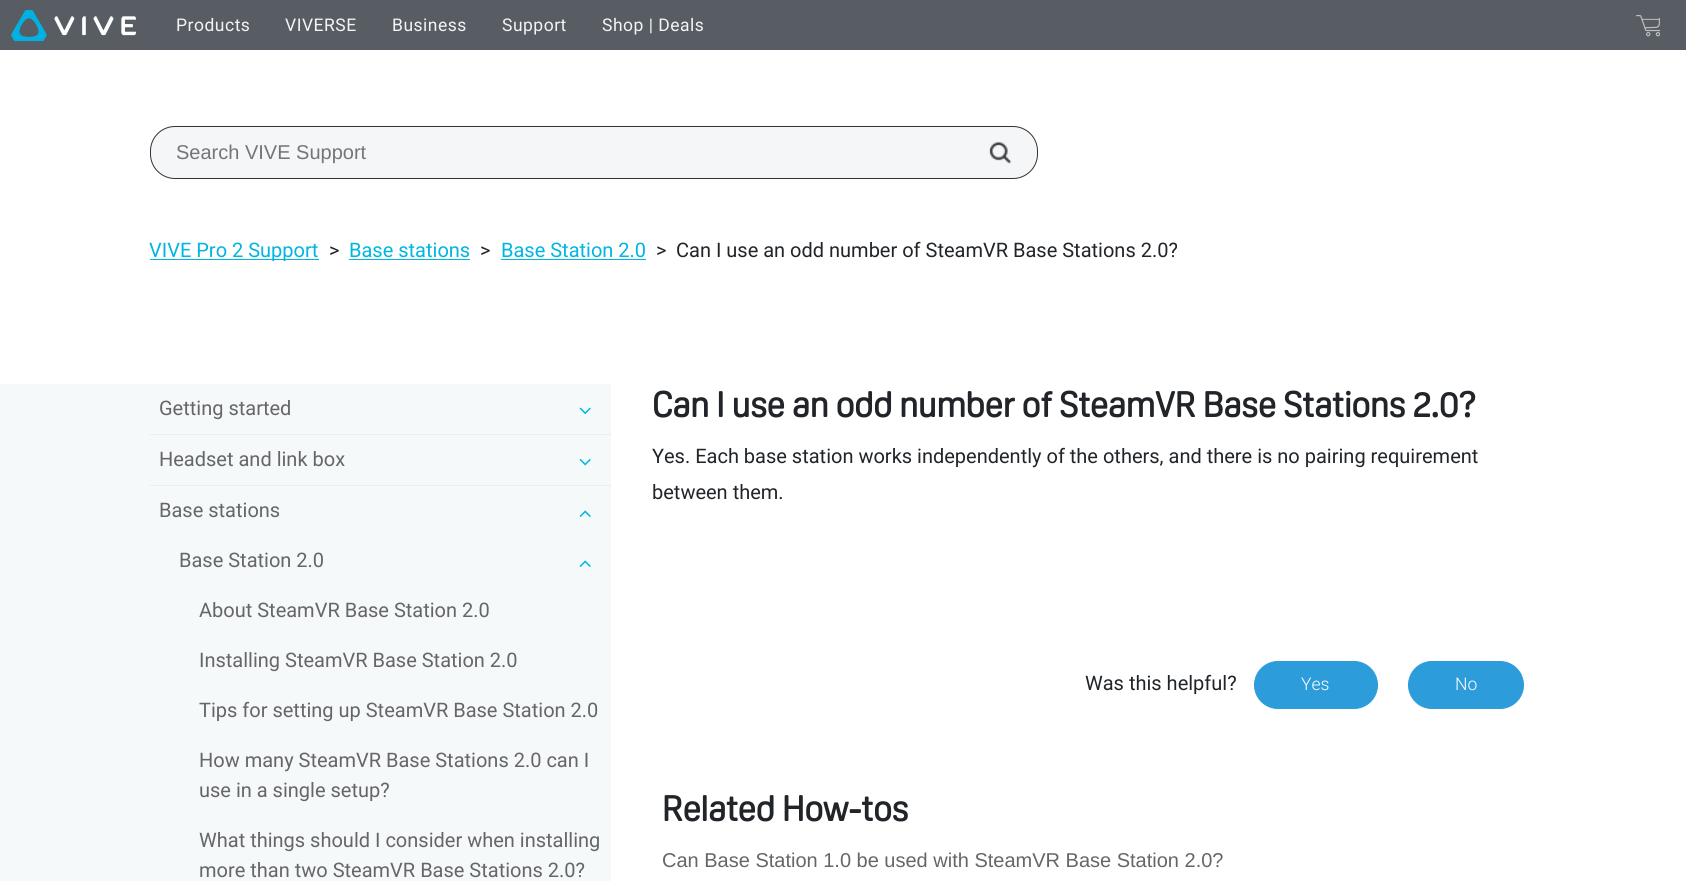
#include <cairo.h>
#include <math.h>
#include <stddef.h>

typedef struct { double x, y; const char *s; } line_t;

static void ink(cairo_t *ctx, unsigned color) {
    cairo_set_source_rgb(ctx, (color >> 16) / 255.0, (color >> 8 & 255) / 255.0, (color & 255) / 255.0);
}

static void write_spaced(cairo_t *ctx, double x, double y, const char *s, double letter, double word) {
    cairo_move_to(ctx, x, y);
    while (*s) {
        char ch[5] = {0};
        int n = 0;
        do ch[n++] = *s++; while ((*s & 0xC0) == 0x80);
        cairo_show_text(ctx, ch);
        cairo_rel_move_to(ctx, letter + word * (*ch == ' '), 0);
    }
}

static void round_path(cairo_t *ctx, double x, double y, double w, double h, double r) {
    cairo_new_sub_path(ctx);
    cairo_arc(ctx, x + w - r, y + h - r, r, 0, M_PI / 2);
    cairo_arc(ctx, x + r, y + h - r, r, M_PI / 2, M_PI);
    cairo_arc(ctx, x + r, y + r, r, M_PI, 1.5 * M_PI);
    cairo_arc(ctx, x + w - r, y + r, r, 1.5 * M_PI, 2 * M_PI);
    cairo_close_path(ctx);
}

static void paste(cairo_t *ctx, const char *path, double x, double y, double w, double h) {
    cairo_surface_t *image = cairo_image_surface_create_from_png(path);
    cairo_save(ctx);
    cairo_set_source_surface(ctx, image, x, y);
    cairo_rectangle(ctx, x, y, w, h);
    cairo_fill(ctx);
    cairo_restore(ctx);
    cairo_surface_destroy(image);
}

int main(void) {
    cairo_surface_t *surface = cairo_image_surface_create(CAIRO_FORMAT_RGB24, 1686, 881);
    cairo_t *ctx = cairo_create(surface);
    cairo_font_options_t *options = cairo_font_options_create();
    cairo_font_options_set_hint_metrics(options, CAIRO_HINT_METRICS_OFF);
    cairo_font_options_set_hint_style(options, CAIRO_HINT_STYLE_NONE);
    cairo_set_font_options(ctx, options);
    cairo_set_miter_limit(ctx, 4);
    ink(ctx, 0xFFFFFF);
    cairo_paint(ctx);
    ink(ctx, 0x585D63);
    cairo_rectangle(ctx, 0, 0, 1686, 50);
    cairo_fill(ctx);
    paste(ctx, "media/1.png", 11, 10, 125, 31);
    cairo_select_font_face(ctx, "Roboto", CAIRO_FONT_SLANT_NORMAL, CAIRO_FONT_WEIGHT_NORMAL);
    cairo_set_font_size(ctx, 17.5);
    ink(ctx, 0xF2F4F8);
    {
        static const line_t items[] = {
            {176, 31, "Products"},
            {285, 31, "VIVERSE"},
            {392, 31, "Business"},
            {502, 31, "Support"},
            {602, 31, "Shop | Deals"},
        };
        for (size_t i = 0; i < sizeof items / sizeof *items; i++) {
            write_spaced(ctx, items[i].x, items[i].y, items[i].s, 0.5, 0);
        }
    }
    paste(ctx, "media/2.png", 1636, 15, 25, 22);
    ink(ctx, 0xF4F6F8);
    round_path(ctx, 150.5, 126.5, 887, 52, 24.5);
    cairo_fill_preserve(ctx);
    ink(ctx, 0x333333);
    cairo_set_line_width(ctx, 1);
    cairo_stroke(ctx);
    cairo_select_font_face(ctx, "Liberation Sans", CAIRO_FONT_SLANT_NORMAL, CAIRO_FONT_WEIGHT_NORMAL);
    cairo_set_font_size(ctx, 20);
    ink(ctx, 0x757575);
    cairo_move_to(ctx, 176, 159);
    cairo_show_text(ctx, "Search VIVE Support");
    paste(ctx, "media/3.png", 989, 141, 23, 23);
    ink(ctx, 0x00B5E2);
    cairo_rectangle(ctx, 150, 259, 169, 1);
    cairo_fill(ctx);
    cairo_select_font_face(ctx, "Roboto", CAIRO_FONT_SLANT_NORMAL, CAIRO_FONT_WEIGHT_NORMAL);
    cairo_move_to(ctx, 149, 257);
    cairo_show_text(ctx, "VIVE Pro 2 Support");
    ink(ctx, 0x212529);
    cairo_move_to(ctx, 329, 257);
    cairo_show_text(ctx, ">");
    ink(ctx, 0x00B5E2);
    cairo_move_to(ctx, 349, 257);
    cairo_show_text(ctx, "Base stations");
    cairo_rectangle(ctx, 349, 259, 121, 1);
    cairo_fill(ctx);
    ink(ctx, 0x212529);
    cairo_move_to(ctx, 480, 257);
    cairo_show_text(ctx, ">");
    ink(ctx, 0x00B5E2);
    cairo_move_to(ctx, 501, 257);
    cairo_show_text(ctx, "Base Station 2.0");
    cairo_rectangle(ctx, 501, 259, 145, 1);
    cairo_fill(ctx);
    ink(ctx, 0x212529);
    cairo_move_to(ctx, 656, 257);
    cairo_show_text(ctx, ">");
    cairo_move_to(ctx, 676, 257);
    cairo_show_text(ctx, "Can I use an odd number of SteamVR Base Stations 2.0?");
    ink(ctx, 0xF5F9FA);
    cairo_rectangle(ctx, 0, 384, 611, 497);
    cairo_fill(ctx);
    ink(ctx, 0xEEEEEE);
    cairo_rectangle(ctx, 150, 434, 461, 1);
    cairo_fill(ctx);
    ink(ctx, 0x666666);
    cairo_move_to(ctx, 159, 415);
    cairo_show_text(ctx, "Getting started");
    paste(ctx, "media/4.png", 579, 407, 12, 8);
    ink(ctx, 0xEEEEEE);
    cairo_rectangle(ctx, 150, 485, 461, 1);
    cairo_fill(ctx);
    ink(ctx, 0x666666);
    cairo_move_to(ctx, 159, 466);
    cairo_show_text(ctx, "Headset and link box");
    paste(ctx, "media/5.png", 579, 458, 12, 8);
    cairo_move_to(ctx, 159, 517);
    cairo_show_text(ctx, "Base stations");
    paste(ctx, "media/6.png", 579, 510, 12, 7);
    cairo_move_to(ctx, 179, 567);
    cairo_show_text(ctx, "Base Station 2.0");
    paste(ctx, "media/6.png", 579, 560, 12, 7);
    {
        static const line_t items[] = {
            {199, 617, "About SteamVR Base Station 2.0"},
            {199, 667, "Installing SteamVR Base Station 2.0"},
            {199, 717, "Tips for setting up SteamVR Base Station 2.0"},
            {199, 767, "How many SteamVR Base Stations 2.0 can I"},
            {199, 797, "use in a single setup?"},
            {199, 847, "What things should I consider when installing"},
            {199, 877, "more than two SteamVR Base Stations 2.0?"},
        };
        for (size_t i = 0; i < sizeof items / sizeof *items; i++) {
            cairo_move_to(ctx, items[i].x, items[i].y);
            cairo_show_text(ctx, items[i].s);
        }
    }
    cairo_select_font_face(ctx, "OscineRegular", CAIRO_FONT_SLANT_NORMAL, CAIRO_FONT_WEIGHT_BOLD);
    cairo_set_font_size(ctx, 35);
    ink(ctx, 0x212529);
    cairo_move_to(ctx, 652, 417);
    cairo_show_text(ctx, "Can I use an odd number of SteamVR Base Stations 2.0?");
    cairo_select_font_face(ctx, "Roboto", CAIRO_FONT_SLANT_NORMAL, CAIRO_FONT_WEIGHT_NORMAL);
    cairo_set_font_size(ctx, 20);
    {
        static const line_t items[] = {
            {652, 463, "Yes. Each base station works independently of the others, and there is no pairing requirement"},
            {652, 499, "between them."},
            {1085, 690, "Was this helpful?"},
        };
        for (size_t i = 0; i < sizeof items / sizeof *items; i++) {
            cairo_move_to(ctx, items[i].x, items[i].y);
            cairo_show_text(ctx, items[i].s);
        }
    }
    ink(ctx, 0x2C9CDB);
    round_path(ctx, 1254.5, 661.5, 123, 47, 23.5);
    cairo_fill_preserve(ctx);
    cairo_stroke(ctx);
    cairo_select_font_face(ctx, "Roboto Light", CAIRO_FONT_SLANT_NORMAL, CAIRO_FONT_WEIGHT_NORMAL);
    cairo_set_font_size(ctx, 17.5);
    ink(ctx, 0xFFFFFF);
    cairo_move_to(ctx, 1301, 690);
    cairo_show_text(ctx, "Yes");
    ink(ctx, 0x2C9CDB);
    round_path(ctx, 1408.5, 661.5, 115, 47, 23.5);
    cairo_fill_preserve(ctx);
    cairo_stroke(ctx);
    ink(ctx, 0xFFFFFF);
    cairo_move_to(ctx, 1455, 690);
    cairo_show_text(ctx, "No");
    cairo_select_font_face(ctx, "OscineRegular", CAIRO_FONT_SLANT_NORMAL, CAIRO_FONT_WEIGHT_BOLD);
    cairo_set_font_size(ctx, 35);
    ink(ctx, 0x212529);
    cairo_move_to(ctx, 662, 821);
    cairo_show_text(ctx, "Related How-tos");
    cairo_select_font_face(ctx, "Liberation Sans", CAIRO_FONT_SLANT_NORMAL, CAIRO_FONT_WEIGHT_NORMAL);
    cairo_set_font_size(ctx, 20);
    ink(ctx, 0x666666);
    cairo_move_to(ctx, 662, 867);
    cairo_show_text(ctx, "Can Base Station 1.0 be used with SteamVR Base Station 2.0?");
    cairo_surface_write_to_png(surface, "image.png");
    cairo_font_options_destroy(options);
    cairo_destroy(ctx);
    cairo_surface_destroy(surface);
    return 0;
}
